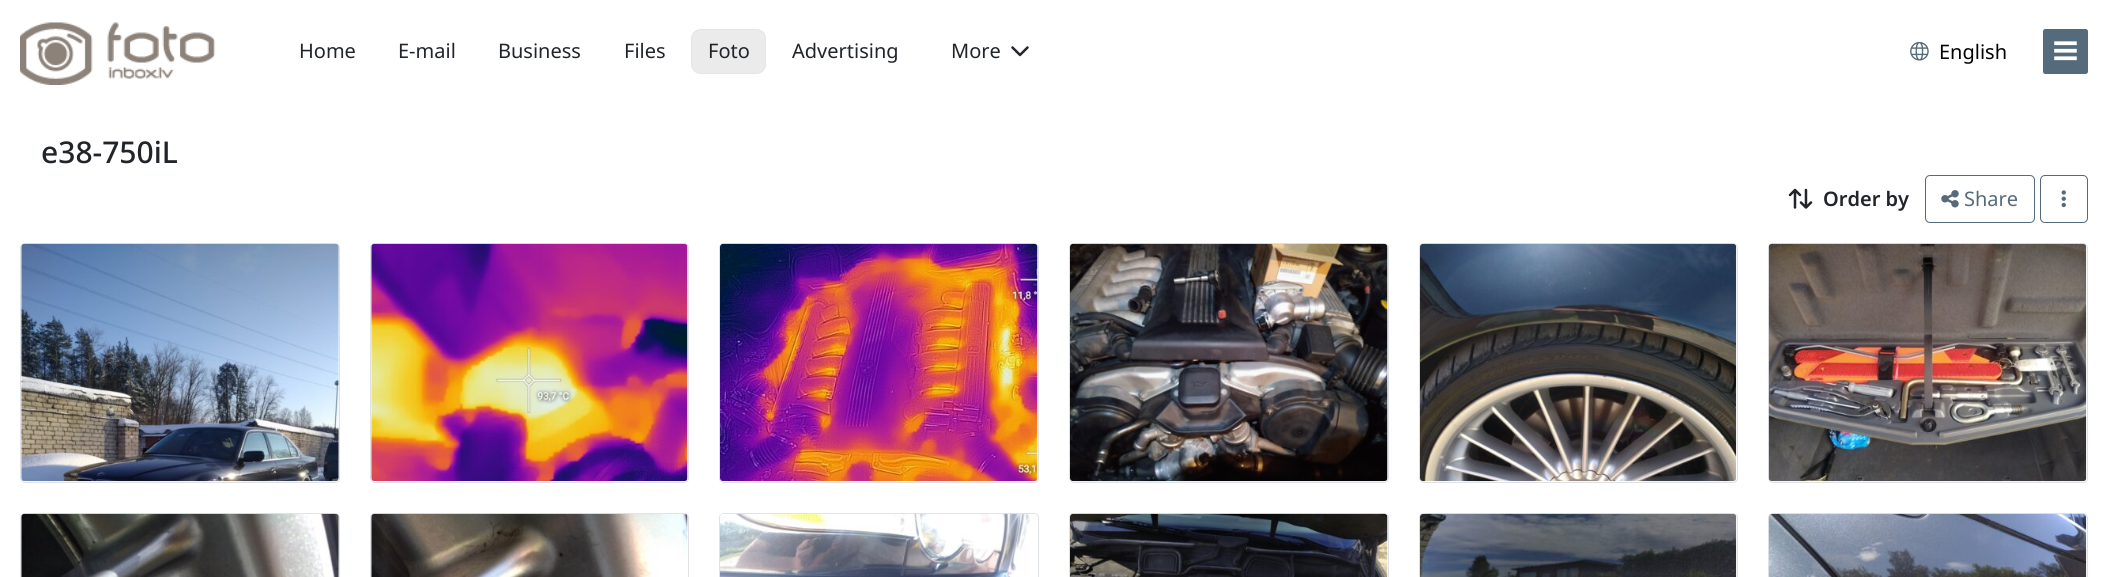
#include <cairo.h>
#include <math.h>
#include <stddef.h>

typedef struct { double x, y; const char *s; } line_t;

static void ink(cairo_t *ctx, unsigned color) {
    cairo_set_source_rgb(ctx, (color >> 16) / 255.0, (color >> 8 & 255) / 255.0, (color & 255) / 255.0);
}

static void round_path(cairo_t *ctx, double x, double y, double w, double h, double r) {
    cairo_new_sub_path(ctx);
    cairo_arc(ctx, x + w - r, y + h - r, r, 0, M_PI / 2);
    cairo_arc(ctx, x + r, y + h - r, r, M_PI / 2, M_PI);
    cairo_arc(ctx, x + r, y + r, r, M_PI, 1.5 * M_PI);
    cairo_arc(ctx, x + w - r, y + r, r, 1.5 * M_PI, 2 * M_PI);
    cairo_close_path(ctx);
}

static void paste(cairo_t *ctx, const char *path, double x, double y, double w, double h) {
    cairo_surface_t *image = cairo_image_surface_create_from_png(path);
    cairo_save(ctx);
    cairo_set_source_surface(ctx, image, x, y);
    cairo_rectangle(ctx, x, y, w, h);
    cairo_fill(ctx);
    cairo_restore(ctx);
    cairo_surface_destroy(image);
}

int main(void) {
    cairo_surface_t *surface = cairo_image_surface_create(CAIRO_FORMAT_RGB24, 2107, 577);
    cairo_t *ctx = cairo_create(surface);
    cairo_font_options_t *options = cairo_font_options_create();
    cairo_font_options_set_hint_metrics(options, CAIRO_HINT_METRICS_OFF);
    cairo_font_options_set_hint_style(options, CAIRO_HINT_STYLE_NONE);
    cairo_set_font_options(ctx, options);
    cairo_set_miter_limit(ctx, 4);
    ink(ctx, 0xFFFFFF);
    cairo_paint(ctx);
    paste(ctx, "media/1.png", 20, 22, 196, 63);
    cairo_select_font_face(ctx, "Noto Sans", CAIRO_FONT_SLANT_NORMAL, CAIRO_FONT_WEIGHT_NORMAL);
    cairo_set_font_size(ctx, 20);
    ink(ctx, 0x212529);
    {
        static const line_t items[] = {
            {299, 58, "Home"},
            {398, 58, "E-mail"},
            {498, 58, "Business"},
            {624, 58, "Files"},
        };
        for (size_t i = 0; i < sizeof items / sizeof *items; i++) {
            cairo_move_to(ctx, items[i].x, items[i].y);
            cairo_show_text(ctx, items[i].s);
        }
    }
    ink(ctx, 0xEBEBEB);
    round_path(ctx, 691, 29, 75, 45, 10);
    cairo_fill(ctx);
    round_path(ctx, 691.5, 29.5, 74, 44, 9.5);
    cairo_set_source_rgba(ctx, 0.89, 0.89, 0.89, 0.7);
    cairo_set_line_width(ctx, 1);
    cairo_stroke(ctx);
    ink(ctx, 0x212529);
    {
        static const line_t items[] = {
            {708, 58, "Foto"},
            {792, 58, "Advertising"},
            {951, 58, "More"},
        };
        for (size_t i = 0; i < sizeof items / sizeof *items; i++) {
            cairo_move_to(ctx, items[i].x, items[i].y);
            cairo_show_text(ctx, items[i].s);
        }
    }
    paste(ctx, "media/2.png", 1011, 46, 18, 11);
    paste(ctx, "media/3.png", 1910, 41, 19, 20);
    ink(ctx, 0x000000);
    cairo_move_to(ctx, 1939, 59);
    cairo_show_text(ctx, "English");
    ink(ctx, 0x556B7C);
    round_path(ctx, 2043.5, 29.5, 44, 44, 2);
    cairo_fill_preserve(ctx);
    cairo_stroke(ctx);
    paste(ctx, "media/4.png", 2054, 41, 23, 20);
    cairo_select_font_face(ctx, "Noto Sans Medium", CAIRO_FONT_SLANT_NORMAL, CAIRO_FONT_WEIGHT_NORMAL);
    cairo_set_font_size(ctx, 30);
    ink(ctx, 0x212529);
    cairo_move_to(ctx, 41, 163);
    cairo_show_text(ctx, "e38-750iL");
    paste(ctx, "media/5.png", 1788, 188, 14, 21);
    paste(ctx, "media/6.png", 1799, 188, 14, 21);
    cairo_select_font_face(ctx, "Noto Sans SemiBold", CAIRO_FONT_SLANT_NORMAL, CAIRO_FONT_WEIGHT_NORMAL);
    cairo_set_font_size(ctx, 20);
    cairo_move_to(ctx, 1823, 206);
    cairo_show_text(ctx, "Order by");
    round_path(ctx, 1925.5, 175.5, 109, 47, 4.5);
    ink(ctx, 0x556B7C);
    cairo_stroke(ctx);
    paste(ctx, "media/7.png", 1941, 190, 18, 18);
    cairo_select_font_face(ctx, "Noto Sans", CAIRO_FONT_SLANT_NORMAL, CAIRO_FONT_WEIGHT_NORMAL);
    cairo_move_to(ctx, 1964, 206);
    cairo_show_text(ctx, "Share");
    round_path(ctx, 2040.5, 175.5, 47, 47, 4.5);
    cairo_stroke(ctx);
    paste(ctx, "media/8.png", 2061, 190, 5, 18);
    round_path(ctx, 20.5, 243.5, 319, 239, 4.5);
    ink(ctx, 0xDEE2E6);
    cairo_stroke(ctx);
    paste(ctx, "media/9.png", 21, 243, 318, 239);
    round_path(ctx, 370.5, 243.5, 318, 239, 4.5);
    cairo_stroke(ctx);
    paste(ctx, "media/10.png", 371, 243, 317, 239);
    round_path(ctx, 719.5, 243.5, 319, 239, 4.5);
    cairo_stroke(ctx);
    paste(ctx, "media/11.png", 720, 243, 318, 239);
    round_path(ctx, 1069.5, 243.5, 319, 239, 4.5);
    cairo_stroke(ctx);
    paste(ctx, "media/12.png", 1070, 243, 318, 239);
    round_path(ctx, 1419.5, 243.5, 318, 239, 4.5);
    cairo_stroke(ctx);
    paste(ctx, "media/13.png", 1420, 243, 317, 239);
    round_path(ctx, 1768.5, 243.5, 319, 239, 4.5);
    cairo_stroke(ctx);
    paste(ctx, "media/14.png", 1768, 243, 319, 239);
    round_path(ctx, 20.5, 513.5, 319, 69, 4.5);
    cairo_stroke(ctx);
    paste(ctx, "media/15.png", 21, 513, 318, 64);
    round_path(ctx, 370.5, 513.5, 318, 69, 4.5);
    cairo_stroke(ctx);
    paste(ctx, "media/16.png", 371, 513, 317, 64);
    round_path(ctx, 719.5, 513.5, 319, 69, 4.5);
    cairo_stroke(ctx);
    paste(ctx, "media/17.png", 720, 513, 317, 64);
    round_path(ctx, 1069.5, 513.5, 319, 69, 4.5);
    cairo_stroke(ctx);
    paste(ctx, "media/18.png", 1070, 513, 318, 64);
    round_path(ctx, 1419.5, 513.5, 318, 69, 4.5);
    cairo_stroke(ctx);
    paste(ctx, "media/19.png", 1420, 513, 317, 64);
    round_path(ctx, 1768.5, 513.5, 319, 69, 4.5);
    cairo_stroke(ctx);
    paste(ctx, "media/20.png", 1768, 513, 319, 64);
    cairo_surface_write_to_png(surface, "image.png");
    cairo_font_options_destroy(options);
    cairo_destroy(ctx);
    cairo_surface_destroy(surface);
    return 0;
}
